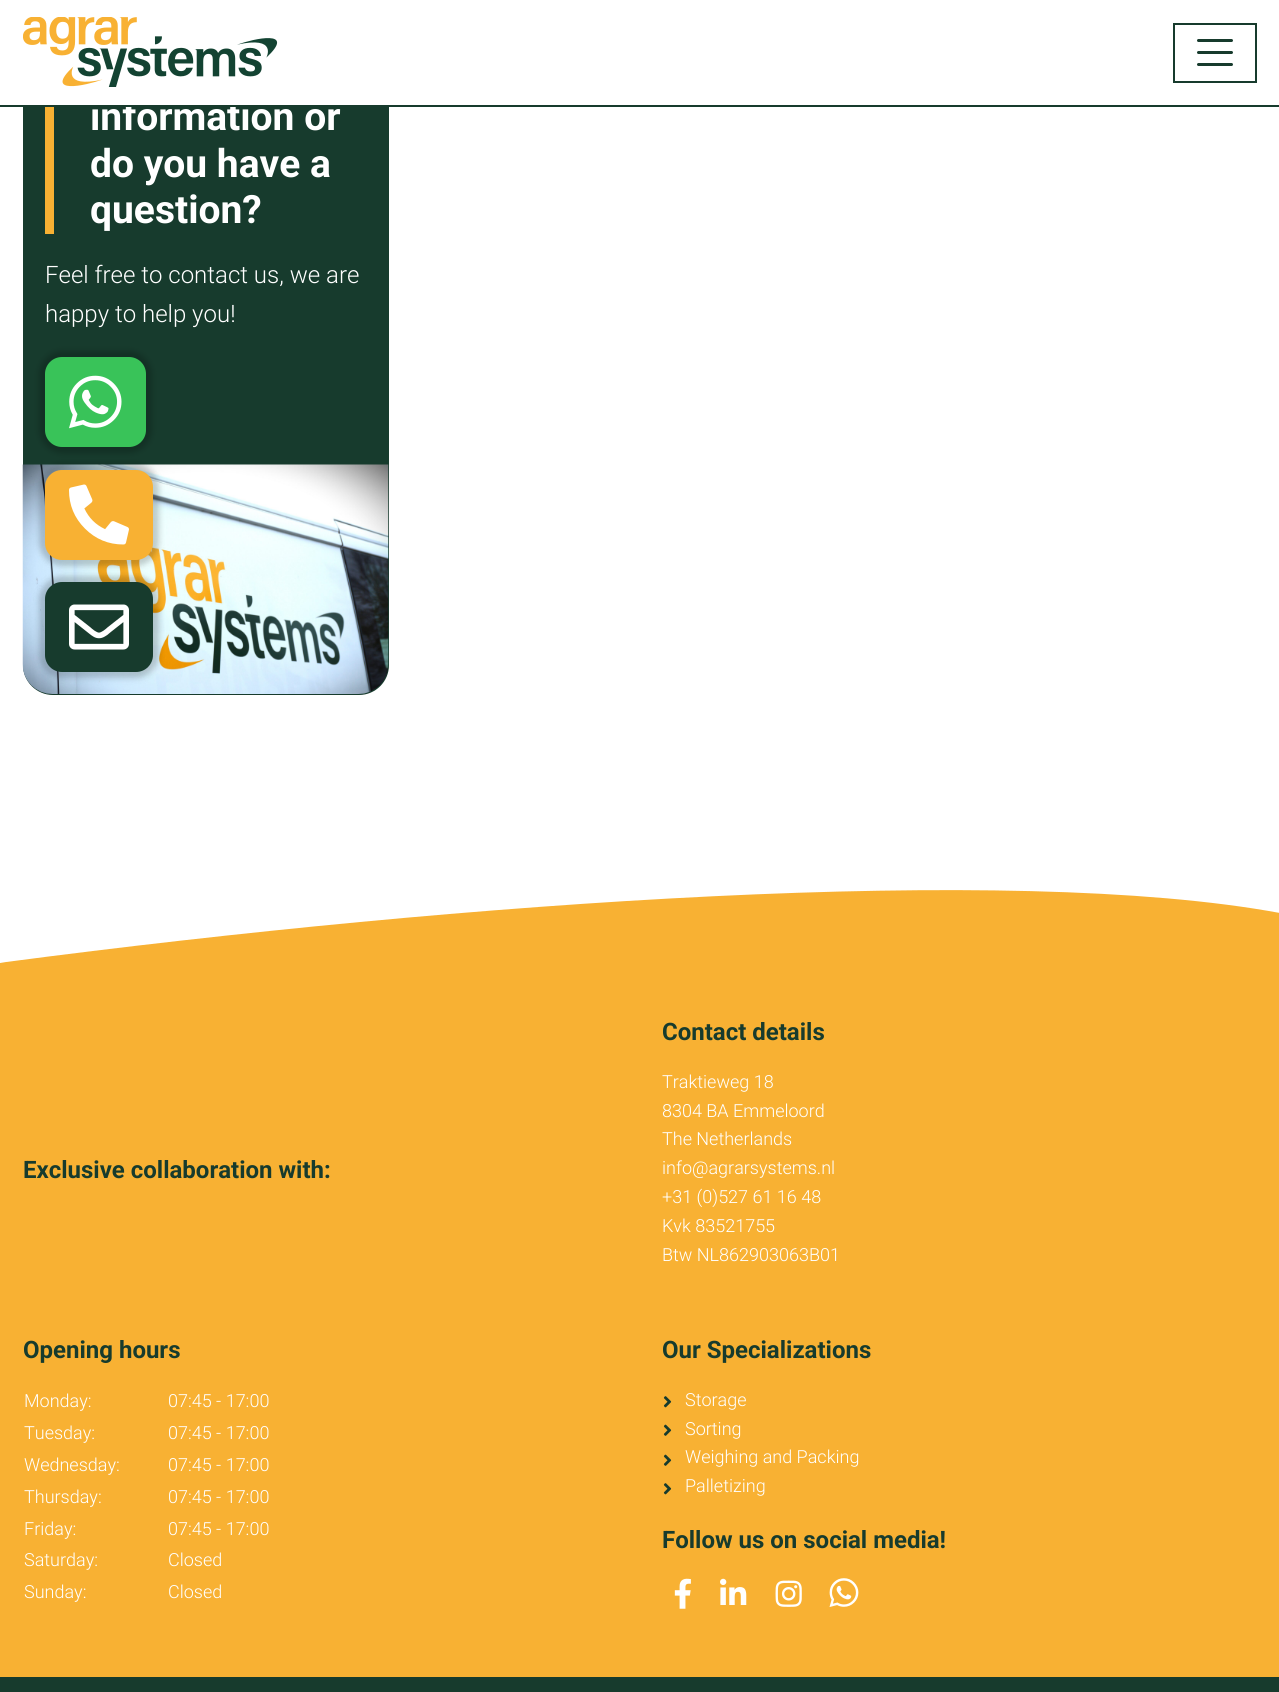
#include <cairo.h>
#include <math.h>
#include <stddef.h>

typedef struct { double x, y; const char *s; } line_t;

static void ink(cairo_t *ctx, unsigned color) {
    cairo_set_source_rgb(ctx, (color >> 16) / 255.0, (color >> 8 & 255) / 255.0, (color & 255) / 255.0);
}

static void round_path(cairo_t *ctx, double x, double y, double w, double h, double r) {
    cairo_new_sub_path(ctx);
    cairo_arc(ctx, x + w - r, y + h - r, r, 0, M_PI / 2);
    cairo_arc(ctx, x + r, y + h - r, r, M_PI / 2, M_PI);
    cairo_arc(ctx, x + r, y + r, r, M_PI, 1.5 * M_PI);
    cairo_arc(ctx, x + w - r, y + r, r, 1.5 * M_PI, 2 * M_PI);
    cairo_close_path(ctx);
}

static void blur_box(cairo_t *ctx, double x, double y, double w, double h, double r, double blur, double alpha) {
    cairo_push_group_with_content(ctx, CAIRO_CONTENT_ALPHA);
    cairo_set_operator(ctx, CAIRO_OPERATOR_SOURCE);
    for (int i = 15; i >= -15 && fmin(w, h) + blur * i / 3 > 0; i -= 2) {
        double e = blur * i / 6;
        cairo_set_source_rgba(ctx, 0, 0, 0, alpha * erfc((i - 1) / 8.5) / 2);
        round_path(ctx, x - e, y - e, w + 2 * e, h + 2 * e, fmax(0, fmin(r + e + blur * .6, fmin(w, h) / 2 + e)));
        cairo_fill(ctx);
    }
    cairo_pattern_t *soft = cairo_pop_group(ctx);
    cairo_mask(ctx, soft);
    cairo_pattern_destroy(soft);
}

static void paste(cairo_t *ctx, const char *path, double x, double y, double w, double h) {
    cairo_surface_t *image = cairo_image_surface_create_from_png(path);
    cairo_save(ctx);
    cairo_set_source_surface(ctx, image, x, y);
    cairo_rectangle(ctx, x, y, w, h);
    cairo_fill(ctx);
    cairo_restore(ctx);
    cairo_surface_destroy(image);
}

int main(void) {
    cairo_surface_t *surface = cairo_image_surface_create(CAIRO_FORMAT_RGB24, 1279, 1692);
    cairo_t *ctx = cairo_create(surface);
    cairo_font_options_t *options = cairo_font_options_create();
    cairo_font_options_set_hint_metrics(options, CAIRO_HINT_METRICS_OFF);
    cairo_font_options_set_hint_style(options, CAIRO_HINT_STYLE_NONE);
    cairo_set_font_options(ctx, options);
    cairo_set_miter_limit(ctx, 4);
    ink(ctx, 0xFFFFFF);
    cairo_paint(ctx);
    ink(ctx, 0x173B2D);
    round_path(ctx, 23, 26, 366, 669, 30);
    cairo_fill(ctx);
    ink(ctx, 0xFFFFFF);
    cairo_rectangle(ctx, 23, 26, 366, 79);
    cairo_fill(ctx);
    cairo_select_font_face(ctx, "Roboto", CAIRO_FONT_SLANT_NORMAL, CAIRO_FONT_WEIGHT_BOLD);
    cairo_set_font_size(ctx, 39);
    cairo_move_to(ctx, 90, 130);
    cairo_show_text(ctx, "information or");
    ink(ctx, 0x173B2D);
    cairo_rectangle(ctx, 0, 105, 1279, 2);
    cairo_fill(ctx);
    paste(ctx, "media/1.png", 23, 17, 255, 70);
    cairo_rectangle(ctx, 1174, 24, 82, 58);
    cairo_stroke(ctx);
    cairo_new_path(ctx);
    cairo_move_to(ctx, 1198.5, 40.5);
    cairo_line_to(ctx, 1231.5, 40.5);
    cairo_move_to(ctx, 1198.5, 52.5);
    cairo_line_to(ctx, 1231.5, 52.5);
    cairo_move_to(ctx, 1198.5, 64.5);
    cairo_line_to(ctx, 1231.5, 64.5);
    cairo_set_line_width(ctx, 3);
    cairo_set_line_cap(ctx, CAIRO_LINE_CAP_ROUND);
    cairo_stroke(ctx);
    ink(ctx, 0xF8B133);
    cairo_rectangle(ctx, 45, 107, 9, 127);
    cairo_fill(ctx);
    ink(ctx, 0xFFFFFF);
    cairo_move_to(ctx, 90, 177);
    cairo_show_text(ctx, "do you have a");
    cairo_move_to(ctx, 90, 223);
    cairo_show_text(ctx, "question?");
    cairo_select_font_face(ctx, "Roboto Light", CAIRO_FONT_SLANT_NORMAL, CAIRO_FONT_WEIGHT_NORMAL);
    cairo_set_font_size(ctx, 24);
    cairo_move_to(ctx, 45, 283);
    cairo_show_text(ctx, "Feel free to contact us, we are");
    cairo_move_to(ctx, 45, 322);
    cairo_show_text(ctx, "happy to help you!");
    ink(ctx, 0x000000);
    blur_box(ctx, 39, 351, 113, 102, 23, 3, 0.2);
    ink(ctx, 0x39C359);
    round_path(ctx, 45, 357, 101, 90, 17);
    cairo_fill(ctx);
    paste(ctx, "media/2.png", 69, 375, 53, 54);
    paste(ctx, "media/5.png", 22, 464, 367, 230);
    ink(ctx, 0x000000);
    blur_box(ctx, 39, 464, 120, 102, 23, 3, 0.2);
    ink(ctx, 0xF8B133);
    round_path(ctx, 45, 470, 108, 90, 17);
    cairo_fill(ctx);
    paste(ctx, "media/3.png", 69, 484, 60, 61);
    ink(ctx, 0x000000);
    blur_box(ctx, 39, 576, 120, 102, 23, 3, 0.2);
    ink(ctx, 0x173B2D);
    round_path(ctx, 45, 582, 108, 90, 17);
    cairo_fill(ctx);
    paste(ctx, "media/4.png", 69, 604, 60, 46);
    cairo_save(ctx);
    cairo_rectangle(ctx, 0, 890, 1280, 127);
    cairo_clip(ctx);
    ink(ctx, 0xF8B133);
    cairo_new_path(ctx);
    cairo_move_to(ctx, 6, 962);
    cairo_line_to(ctx, 0, 963);
    cairo_line_to(ctx, 0, 1209);
    cairo_line_to(ctx, 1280, 1209);
    cairo_line_to(ctx, 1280, 913);
    cairo_curve_to(ctx, 1010, 863, 463, 902, 6, 962);
    cairo_close_path(ctx);
    cairo_fill(ctx);
    cairo_restore(ctx);
    ink(ctx, 0xF8B133);
    cairo_rectangle(ctx, 0, 1017, 1279, 660);
    cairo_fill(ctx);
    cairo_select_font_face(ctx, "Roboto", CAIRO_FONT_SLANT_NORMAL, CAIRO_FONT_WEIGHT_BOLD);
    ink(ctx, 0x173B2D);
    cairo_move_to(ctx, 23, 1178);
    cairo_show_text(ctx, "Exclusive collaboration with:");
    cairo_move_to(ctx, 662, 1040);
    cairo_show_text(ctx, "Contact details");
    cairo_select_font_face(ctx, "Roboto Light", CAIRO_FONT_SLANT_NORMAL, CAIRO_FONT_WEIGHT_NORMAL);
    cairo_set_font_size(ctx, 18);
    ink(ctx, 0xFFFFFF);
    {
        static const line_t items[] = {
            {662, 1088, "Traktieweg 18"},
            {662, 1117, "8304 BA Emmeloord"},
            {662, 1145, "The Netherlands"},
            {662, 1174, "info@agrarsystems.nl"},
            {662, 1203, "+31 (0)527 61 16 48"},
            {662, 1232, "Kvk 83521755"},
            {662, 1261, "Btw NL862903063B01"},
        };
        for (size_t i = 0; i < sizeof items / sizeof *items; i++) {
            cairo_move_to(ctx, items[i].x, items[i].y);
            cairo_show_text(ctx, items[i].s);
        }
    }
    cairo_select_font_face(ctx, "Roboto", CAIRO_FONT_SLANT_NORMAL, CAIRO_FONT_WEIGHT_BOLD);
    cairo_set_font_size(ctx, 24);
    ink(ctx, 0x173B2D);
    cairo_move_to(ctx, 23, 1358);
    cairo_show_text(ctx, "Opening hours");
    cairo_select_font_face(ctx, "Roboto Light", CAIRO_FONT_SLANT_NORMAL, CAIRO_FONT_WEIGHT_NORMAL);
    cairo_set_font_size(ctx, 18);
    ink(ctx, 0xFFFFFF);
    {
        static const line_t items[] = {
            {24, 1407, "Monday:"},
            {168, 1407, "07:45 - 17:00"},
            {24, 1439, "Tuesday:"},
            {168, 1439, "07:45 - 17:00"},
            {24, 1471, "Wednesday:"},
            {168, 1471, "07:45 - 17:00"},
            {24, 1503, "Thursday:"},
            {168, 1503, "07:45 - 17:00"},
            {24, 1535, "Friday:"},
            {168, 1535, "07:45 - 17:00"},
            {24, 1566, "Saturday:"},
            {168, 1566, "Closed"},
            {24, 1598, "Sunday:"},
            {168, 1598, "Closed"},
        };
        for (size_t i = 0; i < sizeof items / sizeof *items; i++) {
            cairo_move_to(ctx, items[i].x, items[i].y);
            cairo_show_text(ctx, items[i].s);
        }
    }
    cairo_select_font_face(ctx, "Roboto", CAIRO_FONT_SLANT_NORMAL, CAIRO_FONT_WEIGHT_BOLD);
    cairo_set_font_size(ctx, 24);
    ink(ctx, 0x173B2D);
    cairo_move_to(ctx, 662, 1358);
    cairo_show_text(ctx, "Our Specializations");
    paste(ctx, "media/6.png", 663, 1396, 9, 12);
    cairo_select_font_face(ctx, "Roboto Light", CAIRO_FONT_SLANT_NORMAL, CAIRO_FONT_WEIGHT_NORMAL);
    cairo_set_font_size(ctx, 18);
    ink(ctx, 0xFFFFFF);
    cairo_move_to(ctx, 685, 1406);
    cairo_show_text(ctx, "Storage");
    paste(ctx, "media/7.png", 663, 1424, 9, 12);
    cairo_move_to(ctx, 685, 1435);
    cairo_show_text(ctx, "Sorting");
    paste(ctx, "media/7.png", 663, 1454, 9, 12);
    cairo_move_to(ctx, 685, 1463);
    cairo_show_text(ctx, "Weighing and Packing");
    paste(ctx, "media/6.png", 663, 1483, 9, 12);
    cairo_move_to(ctx, 685, 1492);
    cairo_show_text(ctx, "Palletizing");
    cairo_select_font_face(ctx, "Roboto", CAIRO_FONT_SLANT_NORMAL, CAIRO_FONT_WEIGHT_BOLD);
    cairo_set_font_size(ctx, 24);
    ink(ctx, 0x173B2D);
    cairo_move_to(ctx, 662, 1548);
    cairo_show_text(ctx, "Follow us on social media!");
    paste(ctx, "media/8.png", 674, 1578, 17, 31);
    paste(ctx, "media/9.png", 720, 1578, 27, 27);
    paste(ctx, "media/10.png", 775, 1580, 27, 27);
    paste(ctx, "media/11.png", 829, 1578, 30, 29);
    cairo_rectangle(ctx, 0, 1677, 1279, 15);
    cairo_fill(ctx);
    cairo_surface_write_to_png(surface, "image.png");
    cairo_font_options_destroy(options);
    cairo_destroy(ctx);
    cairo_surface_destroy(surface);
    return 0;
}
